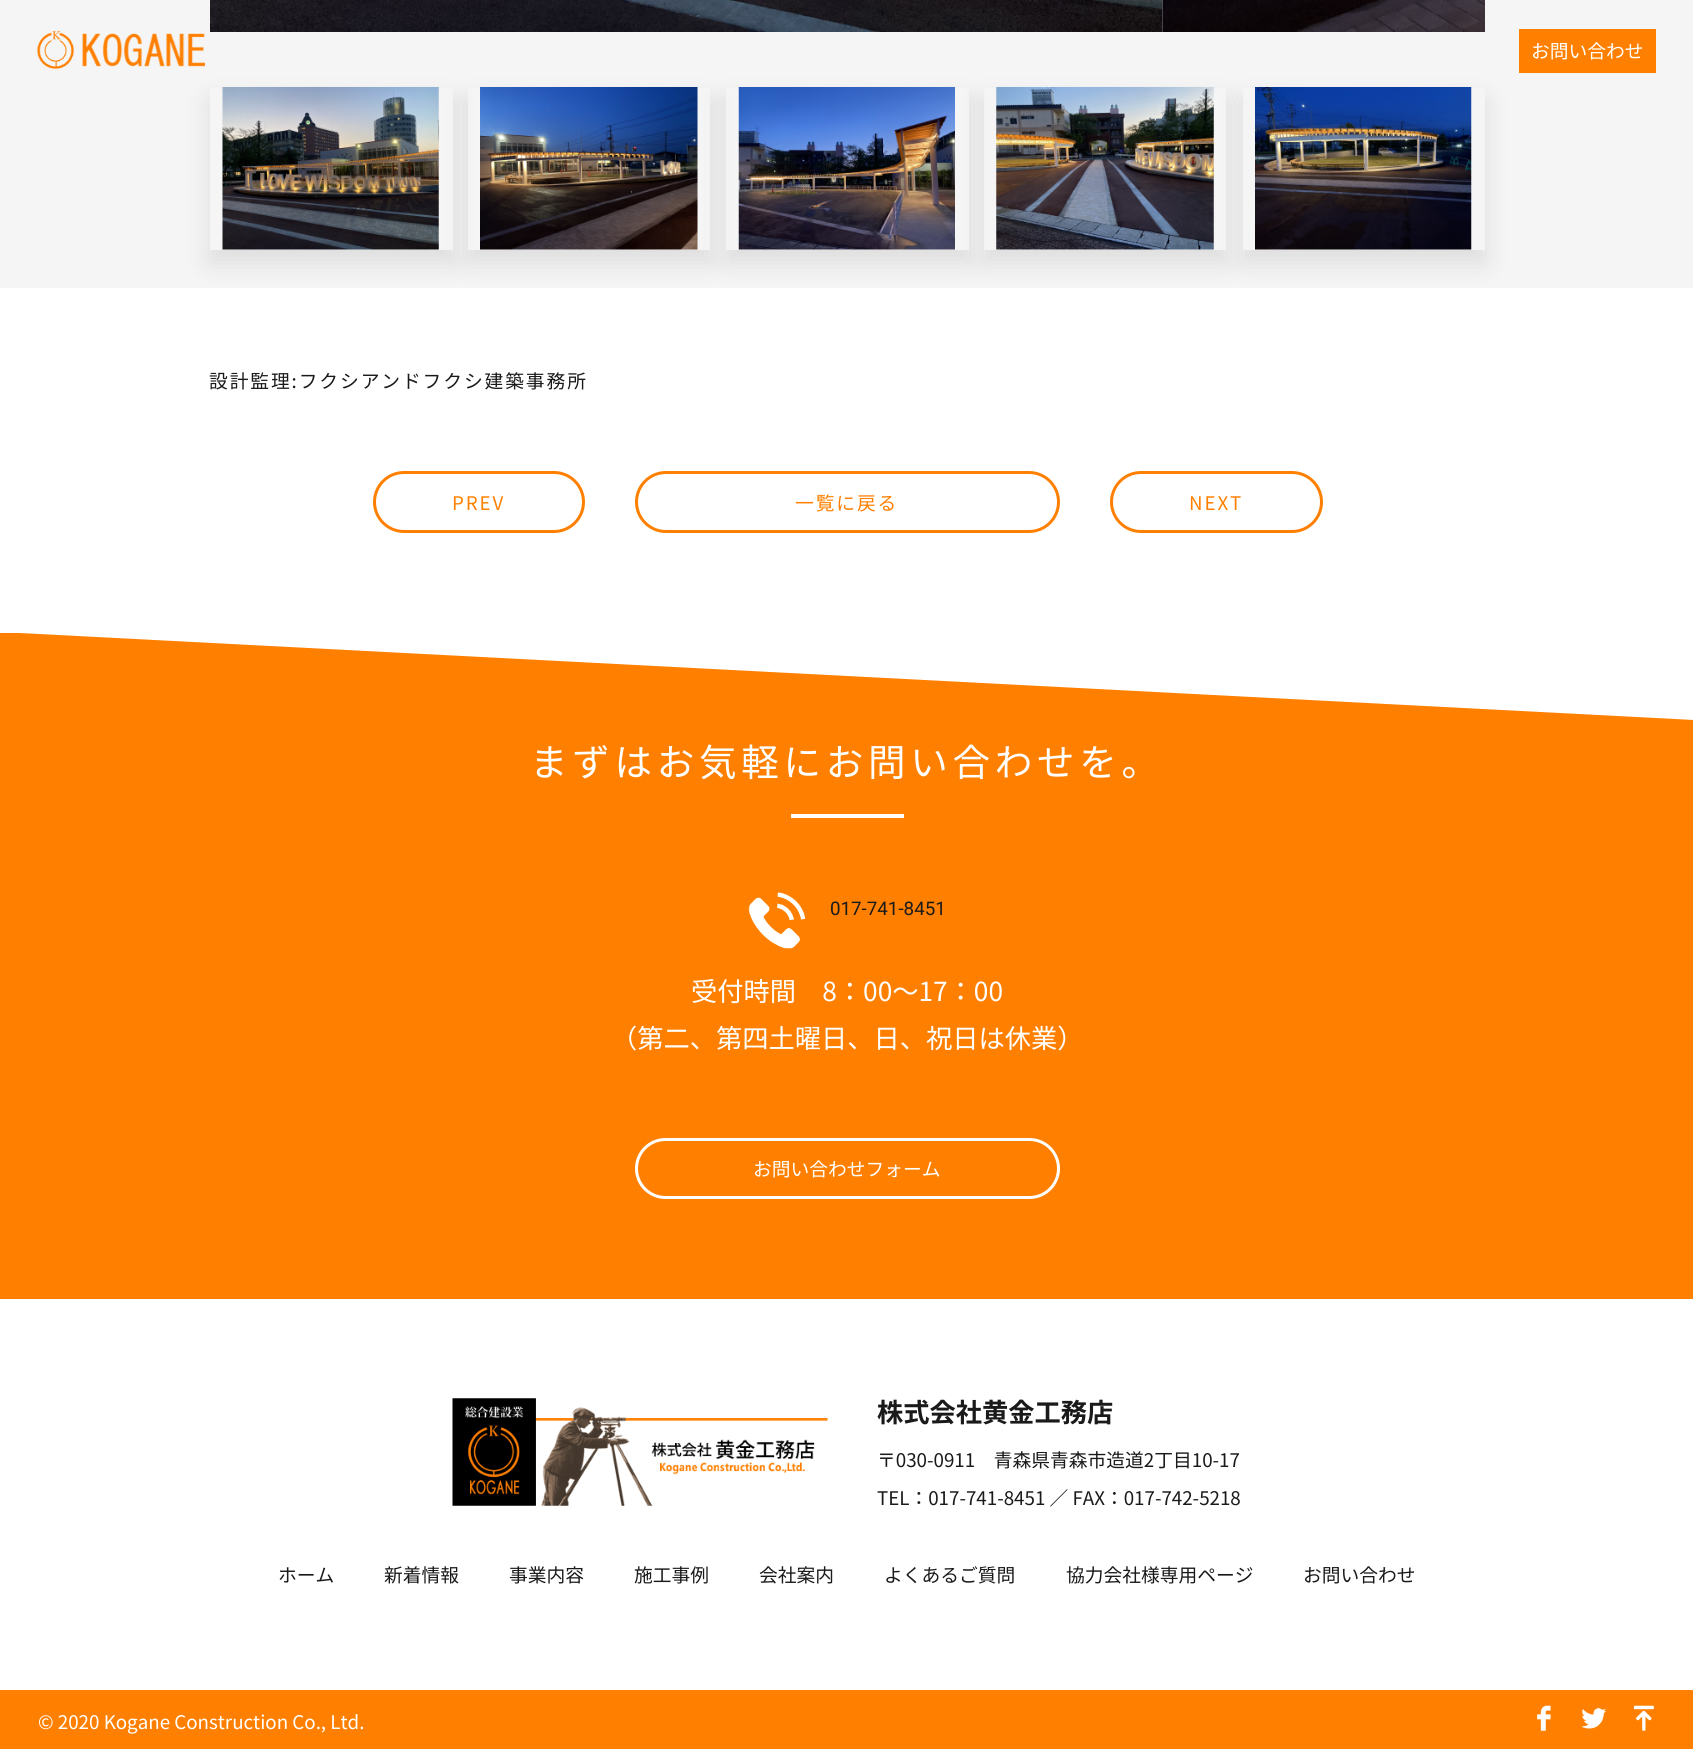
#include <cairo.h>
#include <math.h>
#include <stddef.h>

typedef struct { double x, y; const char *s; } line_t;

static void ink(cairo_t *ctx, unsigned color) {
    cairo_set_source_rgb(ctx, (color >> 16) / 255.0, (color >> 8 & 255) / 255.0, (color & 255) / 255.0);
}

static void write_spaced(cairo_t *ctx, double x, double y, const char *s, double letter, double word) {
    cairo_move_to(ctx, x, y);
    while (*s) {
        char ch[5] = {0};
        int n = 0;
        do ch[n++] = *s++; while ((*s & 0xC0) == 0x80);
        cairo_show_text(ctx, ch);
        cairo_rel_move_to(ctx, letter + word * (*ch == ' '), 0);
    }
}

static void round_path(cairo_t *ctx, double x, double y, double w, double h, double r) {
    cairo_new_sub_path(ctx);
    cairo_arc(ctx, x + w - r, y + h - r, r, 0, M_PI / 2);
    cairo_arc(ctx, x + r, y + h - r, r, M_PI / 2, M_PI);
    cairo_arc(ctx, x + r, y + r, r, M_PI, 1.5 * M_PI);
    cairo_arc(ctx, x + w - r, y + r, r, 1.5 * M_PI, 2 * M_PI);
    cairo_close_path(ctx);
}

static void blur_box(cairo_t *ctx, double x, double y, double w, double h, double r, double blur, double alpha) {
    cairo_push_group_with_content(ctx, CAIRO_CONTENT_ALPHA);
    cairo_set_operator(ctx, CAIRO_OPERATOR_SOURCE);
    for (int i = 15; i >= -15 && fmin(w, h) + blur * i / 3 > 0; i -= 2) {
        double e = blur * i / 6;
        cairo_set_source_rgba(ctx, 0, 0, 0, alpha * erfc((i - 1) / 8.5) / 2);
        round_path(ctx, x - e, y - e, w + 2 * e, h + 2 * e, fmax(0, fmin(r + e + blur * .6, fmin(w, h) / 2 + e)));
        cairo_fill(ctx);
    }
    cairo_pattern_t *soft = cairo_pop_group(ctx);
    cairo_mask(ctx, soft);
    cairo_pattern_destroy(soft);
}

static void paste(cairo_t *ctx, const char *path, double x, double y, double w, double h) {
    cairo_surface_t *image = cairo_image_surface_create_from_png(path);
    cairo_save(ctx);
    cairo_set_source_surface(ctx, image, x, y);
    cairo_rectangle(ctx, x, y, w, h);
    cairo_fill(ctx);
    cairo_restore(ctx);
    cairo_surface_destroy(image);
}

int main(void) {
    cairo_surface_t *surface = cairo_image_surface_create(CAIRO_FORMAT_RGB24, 1693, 1749);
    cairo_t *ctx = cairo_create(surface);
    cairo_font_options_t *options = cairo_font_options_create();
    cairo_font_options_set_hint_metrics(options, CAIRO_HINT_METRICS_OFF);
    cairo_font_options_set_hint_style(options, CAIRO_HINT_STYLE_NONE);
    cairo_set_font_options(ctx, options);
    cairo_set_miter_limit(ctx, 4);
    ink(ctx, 0xFFFFFF);
    cairo_paint(ctx);
    ink(ctx, 0xF5F5F5);
    cairo_rectangle(ctx, 0, 0, 1693, 288);
    cairo_fill(ctx);
    cairo_save(ctx);
    cairo_set_fill_rule(ctx, CAIRO_FILL_RULE_EVEN_ODD);
    cairo_new_path(ctx);
    cairo_move_to(ctx, 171, 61);
    cairo_line_to(ctx, 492, 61);
    cairo_line_to(ctx, 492, 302);
    cairo_line_to(ctx, 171, 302);
    cairo_close_path(ctx);
    cairo_move_to(ctx, 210, 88);
    cairo_line_to(ctx, 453, 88);
    cairo_line_to(ctx, 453, 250);
    cairo_line_to(ctx, 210, 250);
    cairo_close_path(ctx);
    cairo_clip(ctx);
    ink(ctx, 0x000000);
    blur_box(ctx, 210, 100, 243, 163, 0, 12.5, 0.1);
    cairo_restore(ctx);
    paste(ctx, "media/1.png", 37, 31, 168, 38);
    paste(ctx, "media/4.png", 222, 87, 217, 163);
    cairo_save(ctx);
    cairo_set_fill_rule(ctx, CAIRO_FILL_RULE_EVEN_ODD);
    cairo_new_path(ctx);
    cairo_move_to(ctx, 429, 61);
    cairo_line_to(ctx, 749, 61);
    cairo_line_to(ctx, 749, 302);
    cairo_line_to(ctx, 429, 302);
    cairo_close_path(ctx);
    cairo_move_to(ctx, 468, 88);
    cairo_line_to(ctx, 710, 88);
    cairo_line_to(ctx, 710, 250);
    cairo_line_to(ctx, 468, 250);
    cairo_close_path(ctx);
    cairo_clip(ctx);
    ink(ctx, 0x000000);
    blur_box(ctx, 468, 100, 242, 163, 0, 12.5, 0.1);
    cairo_restore(ctx);
    paste(ctx, "media/5.png", 480, 87, 218, 163);
    cairo_save(ctx);
    cairo_set_fill_rule(ctx, CAIRO_FILL_RULE_EVEN_ODD);
    cairo_new_path(ctx);
    cairo_move_to(ctx, 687, 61);
    cairo_line_to(ctx, 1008, 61);
    cairo_line_to(ctx, 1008, 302);
    cairo_line_to(ctx, 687, 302);
    cairo_close_path(ctx);
    cairo_move_to(ctx, 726, 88);
    cairo_line_to(ctx, 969, 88);
    cairo_line_to(ctx, 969, 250);
    cairo_line_to(ctx, 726, 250);
    cairo_close_path(ctx);
    cairo_clip(ctx);
    ink(ctx, 0x000000);
    blur_box(ctx, 726, 100, 243, 163, 0, 12.5, 0.1);
    cairo_restore(ctx);
    paste(ctx, "media/6.png", 738, 87, 217, 163);
    cairo_save(ctx);
    cairo_set_fill_rule(ctx, CAIRO_FILL_RULE_EVEN_ODD);
    cairo_new_path(ctx);
    cairo_move_to(ctx, 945, 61);
    cairo_line_to(ctx, 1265, 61);
    cairo_line_to(ctx, 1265, 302);
    cairo_line_to(ctx, 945, 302);
    cairo_close_path(ctx);
    cairo_move_to(ctx, 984, 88);
    cairo_line_to(ctx, 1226, 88);
    cairo_line_to(ctx, 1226, 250);
    cairo_line_to(ctx, 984, 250);
    cairo_close_path(ctx);
    cairo_clip(ctx);
    ink(ctx, 0x000000);
    blur_box(ctx, 984, 100, 242, 163, 0, 12.5, 0.1);
    cairo_restore(ctx);
    paste(ctx, "media/7.png", 996, 87, 218, 163);
    cairo_save(ctx);
    cairo_set_fill_rule(ctx, CAIRO_FILL_RULE_EVEN_ODD);
    cairo_new_path(ctx);
    cairo_move_to(ctx, 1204, 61);
    cairo_line_to(ctx, 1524, 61);
    cairo_line_to(ctx, 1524, 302);
    cairo_line_to(ctx, 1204, 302);
    cairo_close_path(ctx);
    cairo_move_to(ctx, 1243, 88);
    cairo_line_to(ctx, 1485, 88);
    cairo_line_to(ctx, 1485, 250);
    cairo_line_to(ctx, 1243, 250);
    cairo_close_path(ctx);
    cairo_clip(ctx);
    ink(ctx, 0x000000);
    blur_box(ctx, 1243, 100, 242, 163, 0, 12.5, 0.1);
    cairo_restore(ctx);
    ink(ctx, 0xFF8000);
    cairo_rectangle(ctx, 1519, 29, 137, 44);
    cairo_fill(ctx);
    cairo_select_font_face(ctx, "Noto Sans JP", CAIRO_FONT_SLANT_NORMAL, CAIRO_FONT_WEIGHT_NORMAL);
    cairo_set_font_size(ctx, 18.75);
    ink(ctx, 0xFFFFFF);
    cairo_move_to(ctx, 1531, 58);
    cairo_show_text(ctx, "お問い合わせ");
    paste(ctx, "media/2.png", 210, 0, 953, 32);
    paste(ctx, "media/3.png", 1162, 0, 323, 32);
    paste(ctx, "media/8.png", 1255, 87, 217, 163);
    ink(ctx, 0x1A1A1A);
    write_spaced(ctx, 209, 388, "設計監理:フクシアンドフクシ建築事務所", 1.9, 0);
    round_path(ctx, 374.5, 472.5, 209, 59, 29.5);
    ink(ctx, 0xFF8000);
    cairo_set_line_width(ctx, 3);
    cairo_stroke(ctx);
    write_spaced(ctx, 452, 510, "PREV", 1.9, 0);
    round_path(ctx, 636.5, 472.5, 422, 59, 29.5);
    cairo_stroke(ctx);
    write_spaced(ctx, 795, 510, "一覧に戻る", 1.9, 0);
    round_path(ctx, 1111.5, 472.5, 210, 59, 29.5);
    cairo_stroke(ctx);
    write_spaced(ctx, 1189, 510, "NEXT", 1.9, 0);
    cairo_rectangle(ctx, 0, 633, 1693, 666);
    cairo_fill(ctx);
    ink(ctx, 0xFFFFFF);
    cairo_new_path(ctx);
    cairo_move_to(ctx, 0, 632);
    cairo_line_to(ctx, 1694, 632);
    cairo_line_to(ctx, 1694, 720);
    cairo_close_path(ctx);
    cairo_fill(ctx);
    cairo_set_font_size(ctx, 37.5);
    write_spaced(ctx, 530, 776, "まずはお気軽にお問い合わせを。", 4.75, 0);
    cairo_rectangle(ctx, 791, 814, 113, 4);
    cairo_fill(ctx);
    paste(ctx, "media/9.png", 748, 892, 57, 57);
    cairo_select_font_face(ctx, "Roboto", CAIRO_FONT_SLANT_NORMAL, CAIRO_FONT_WEIGHT_NORMAL);
    cairo_set_font_size(ctx, 18.75);
    ink(ctx, 0x1A1A1A);
    cairo_move_to(ctx, 830, 915);
    cairo_show_text(ctx, "017-741-8451");
    cairo_select_font_face(ctx, "Noto Sans JP", CAIRO_FONT_SLANT_NORMAL, CAIRO_FONT_WEIGHT_NORMAL);
    cairo_set_font_size(ctx, 26.25);
    ink(ctx, 0xFFFFFF);
    cairo_move_to(ctx, 691, 1001);
    cairo_show_text(ctx, "受付時間　8：00～17：00");
    cairo_move_to(ctx, 611, 1048);
    cairo_show_text(ctx, "（第二、第四土曜日、日、祝日は休業）");
    round_path(ctx, 636.5, 1139.5, 422, 58, 29);
    cairo_stroke(ctx);
    cairo_set_font_size(ctx, 18.75);
    cairo_move_to(ctx, 753, 1176);
    cairo_show_text(ctx, "お問い合わせフォーム");
    paste(ctx, "media/10.png", 452, 1398, 376, 108);
    cairo_select_font_face(ctx, "Noto Sans JP", CAIRO_FONT_SLANT_NORMAL, CAIRO_FONT_WEIGHT_BOLD);
    cairo_set_font_size(ctx, 26.25);
    ink(ctx, 0x1A1A1A);
    cairo_move_to(ctx, 877, 1422);
    cairo_show_text(ctx, "株式会社黄金工務店");
    cairo_select_font_face(ctx, "Noto Sans JP", CAIRO_FONT_SLANT_NORMAL, CAIRO_FONT_WEIGHT_NORMAL);
    cairo_set_font_size(ctx, 18.75);
    {
        static const line_t items[] = {
            {877, 1467, "〒030-0911　青森県青森市造道2丁目10-17"},
            {877, 1505, "TEL：017-741-8451 ／ FAX：017-742-5218"},
            {278, 1582, "ホーム"},
            {384, 1582, "新着情報"},
            {509, 1582, "事業内容"},
            {634, 1582, "施工事例"},
            {759, 1582, "会社案内"},
            {884, 1582, "よくあるご質問"},
            {1066, 1582, "協力会社様専用ページ"},
            {1303, 1582, "お問い合わせ"},
        };
        for (size_t i = 0; i < sizeof items / sizeof *items; i++) {
            cairo_move_to(ctx, items[i].x, items[i].y);
            cairo_show_text(ctx, items[i].s);
        }
    }
    ink(ctx, 0xFF8000);
    cairo_rectangle(ctx, 0, 1690, 1693, 59);
    cairo_fill(ctx);
    ink(ctx, 0xFFFFFF);
    cairo_move_to(ctx, 38, 1729);
    cairo_show_text(ctx, "© 2020 Kogane Construction Co., Ltd.");
    paste(ctx, "media/11.png", 1537, 1705, 14, 26);
    paste(ctx, "media/12.png", 1581, 1708, 26, 21);
    paste(ctx, "media/13.png", 1633, 1705, 21, 26);
    cairo_surface_write_to_png(surface, "image.png");
    cairo_font_options_destroy(options);
    cairo_destroy(ctx);
    cairo_surface_destroy(surface);
    return 0;
}
